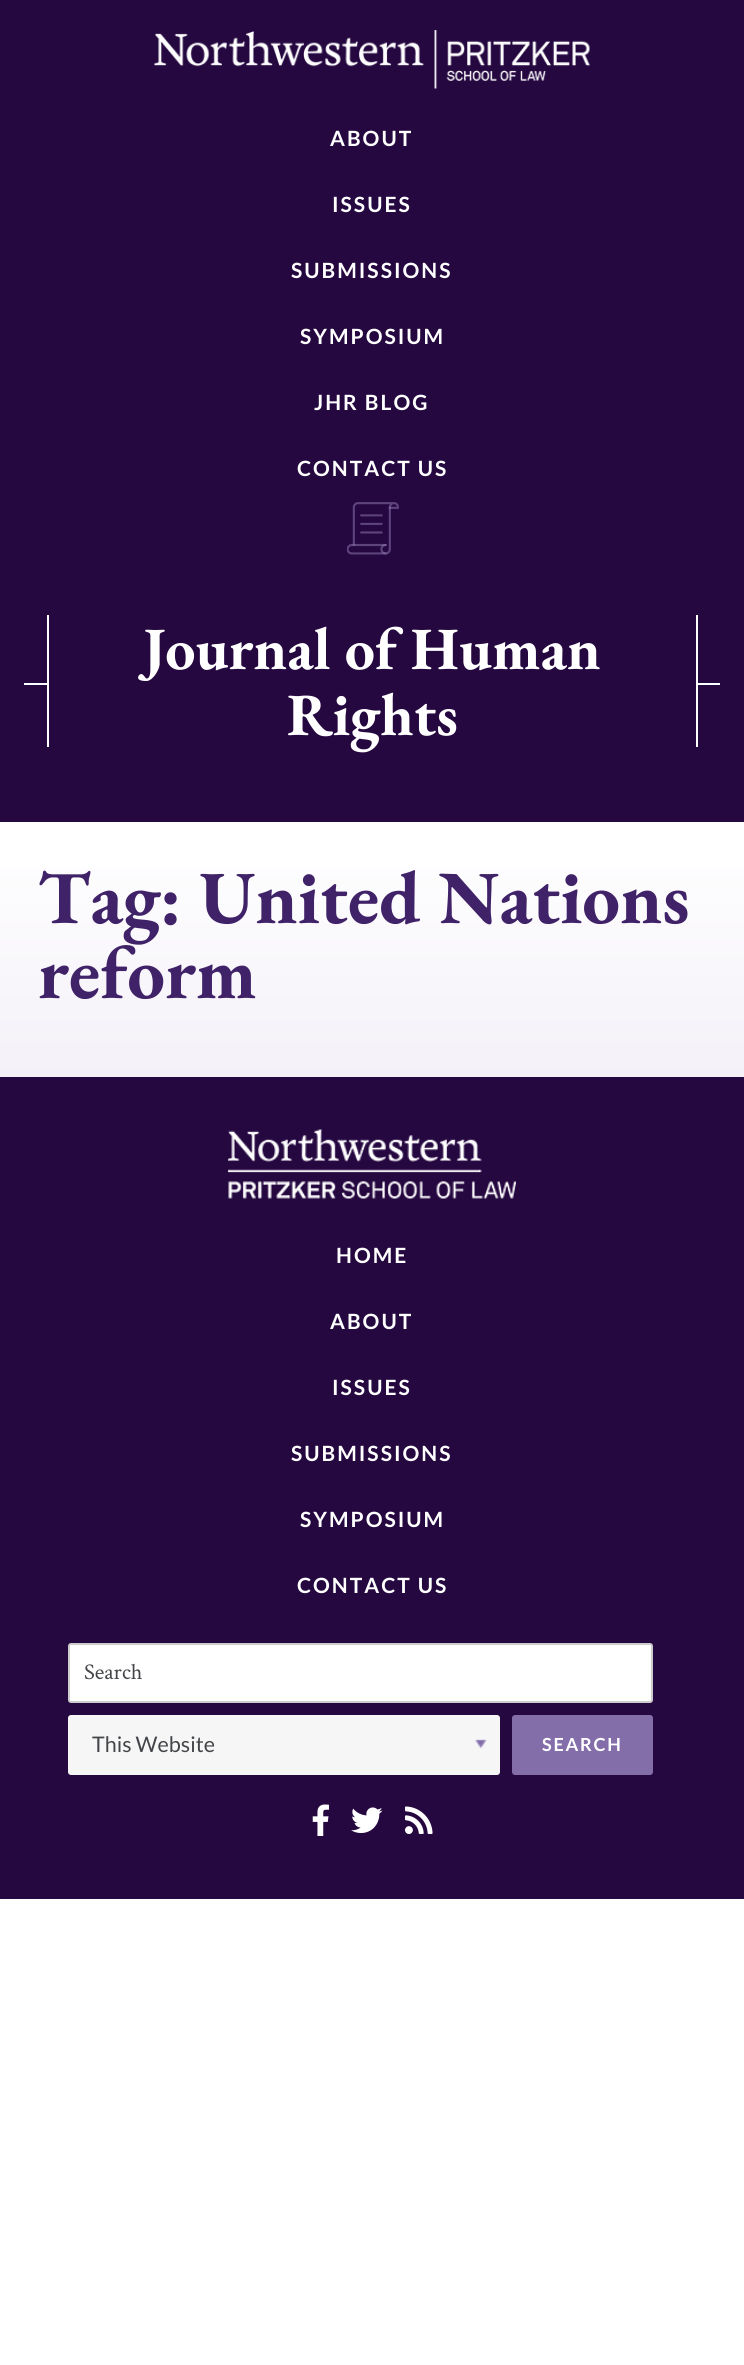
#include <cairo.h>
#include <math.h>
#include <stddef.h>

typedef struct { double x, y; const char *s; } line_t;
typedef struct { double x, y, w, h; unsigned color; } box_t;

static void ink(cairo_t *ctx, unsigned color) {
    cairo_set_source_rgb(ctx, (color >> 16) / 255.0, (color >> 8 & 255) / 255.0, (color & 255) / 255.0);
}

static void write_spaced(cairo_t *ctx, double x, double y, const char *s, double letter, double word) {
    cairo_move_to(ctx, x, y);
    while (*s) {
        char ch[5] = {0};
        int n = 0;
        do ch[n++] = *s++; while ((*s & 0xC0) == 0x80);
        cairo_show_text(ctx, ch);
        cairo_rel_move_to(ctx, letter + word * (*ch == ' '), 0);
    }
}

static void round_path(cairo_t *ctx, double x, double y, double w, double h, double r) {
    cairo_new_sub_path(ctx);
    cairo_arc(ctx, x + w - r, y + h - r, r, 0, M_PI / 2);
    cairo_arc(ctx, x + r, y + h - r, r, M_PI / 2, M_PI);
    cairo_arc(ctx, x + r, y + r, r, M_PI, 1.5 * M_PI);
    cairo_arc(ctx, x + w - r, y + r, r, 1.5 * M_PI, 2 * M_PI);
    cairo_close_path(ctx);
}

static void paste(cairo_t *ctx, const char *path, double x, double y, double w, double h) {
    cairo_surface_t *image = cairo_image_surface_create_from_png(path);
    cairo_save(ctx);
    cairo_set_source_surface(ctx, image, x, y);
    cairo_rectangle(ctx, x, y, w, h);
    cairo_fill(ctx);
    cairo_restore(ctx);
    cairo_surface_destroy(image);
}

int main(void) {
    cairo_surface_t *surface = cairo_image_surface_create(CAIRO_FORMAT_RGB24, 744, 2365);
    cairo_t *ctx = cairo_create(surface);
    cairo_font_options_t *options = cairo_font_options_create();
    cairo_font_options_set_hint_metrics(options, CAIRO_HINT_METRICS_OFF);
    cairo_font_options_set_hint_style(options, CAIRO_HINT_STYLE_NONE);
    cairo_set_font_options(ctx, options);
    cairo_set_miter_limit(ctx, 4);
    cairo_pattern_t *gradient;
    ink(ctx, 0xFFFFFF);
    cairo_paint(ctx);
    ink(ctx, 0x260841);
    cairo_rectangle(ctx, 0, 0, 744, 822);
    cairo_fill(ctx);
    paste(ctx, "media/1.png", 154, 30, 436, 59);
    cairo_select_font_face(ctx, "Lato", CAIRO_FONT_SLANT_NORMAL, CAIRO_FONT_WEIGHT_BOLD);
    cairo_set_font_size(ctx, 21);
    ink(ctx, 0xFFFFFF);
    {
        static const line_t items[] = {
            {330, 146, "ABOUT"},
            {332, 212, "ISSUES"},
            {291, 278, "SUBMISSIONS"},
            {300, 344, "SYMPOSIUM"},
            {314, 410, "JHR BLOG"},
            {297, 476, "CONTACT US"},
        };
        for (size_t i = 0; i < sizeof items / sizeof *items; i++) {
            write_spaced(ctx, items[i].x, items[i].y, items[i].s, 2, 0);
        }
    }
    paste(ctx, "media/2.png", 347, 502, 52, 53);
    {
        static const box_t items[] = {
            {24, 683, 696, 2, 0xFFFFFF},
            {49, 683, 647, 2, 0x260841},
            {696, 615, 2, 132, 0xFFFFFF},
            {47, 615, 2, 132, 0xFFFFFF},
        };
        for (size_t i = 0; i < sizeof items / sizeof *items; i++) {
            ink(ctx, items[i].color);
            cairo_rectangle(ctx, items[i].x, items[i].y, items[i].w, items[i].h);
            cairo_fill(ctx);
        }
    }
    cairo_select_font_face(ctx, "EB Garamond", CAIRO_FONT_SLANT_NORMAL, CAIRO_FONT_WEIGHT_BOLD);
    cairo_set_font_size(ctx, 60);
    cairo_move_to(ctx, 143, 669);
    cairo_show_text(ctx, "Journal of Human");
    cairo_move_to(ctx, 287, 735);
    cairo_show_text(ctx, "Rights");
    gradient = cairo_pattern_create_linear(372, 822, 372, 1077);
    cairo_pattern_add_color_stop_rgba(gradient, 0, 1, 1, 1, 1);
    cairo_pattern_add_color_stop_rgba(gradient, 1, 0.957, 0.945, 0.973, 1);
    cairo_set_source(ctx, gradient);
    cairo_pattern_destroy(gradient);
    cairo_rectangle(ctx, 0, 868, 744, 209);
    cairo_fill(ctx);
    cairo_set_font_size(ctx, 75);
    ink(ctx, 0x402268);
    cairo_move_to(ctx, 38, 923);
    cairo_show_text(ctx, "Tag: United Nations");
    cairo_move_to(ctx, 38, 998);
    cairo_show_text(ctx, "reform");
    ink(ctx, 0x260841);
    cairo_rectangle(ctx, 0, 1077, 744, 822);
    cairo_fill(ctx);
    paste(ctx, "media/3.png", 228, 1129, 288, 70);
    cairo_select_font_face(ctx, "Lato", CAIRO_FONT_SLANT_NORMAL, CAIRO_FONT_WEIGHT_BOLD);
    cairo_set_font_size(ctx, 21);
    ink(ctx, 0xFFFFFF);
    {
        static const line_t items[] = {
            {336, 1263, "HOME"},
            {330, 1329, "ABOUT"},
            {332, 1395, "ISSUES"},
            {291, 1461, "SUBMISSIONS"},
            {300, 1527, "SYMPOSIUM"},
            {297, 1593, "CONTACT US"},
        };
        for (size_t i = 0; i < sizeof items / sizeof *items; i++) {
            write_spaced(ctx, items[i].x, items[i].y, items[i].s, 2, 0);
        }
    }
    round_path(ctx, 69, 1644, 583, 58, 2);
    cairo_fill_preserve(ctx);
    ink(ctx, 0xCCCCCC);
    cairo_stroke(ctx);
    cairo_select_font_face(ctx, "Crimson Text", CAIRO_FONT_SLANT_NORMAL, CAIRO_FONT_WEIGHT_NORMAL);
    cairo_set_font_size(ctx, 22.5);
    ink(ctx, 0x434549);
    cairo_move_to(ctx, 84, 1679);
    cairo_show_text(ctx, "Search");
    ink(ctx, 0xF6F6F6);
    round_path(ctx, 68, 1715, 432, 60, 3);
    cairo_fill(ctx);
    cairo_select_font_face(ctx, "Lato", CAIRO_FONT_SLANT_NORMAL, CAIRO_FONT_WEIGHT_NORMAL);
    cairo_set_font_size(ctx, 21.5);
    ink(ctx, 0x434549);
    cairo_move_to(ctx, 92, 1752);
    cairo_show_text(ctx, "This Website");
    paste(ctx, "media/4.png", 475, 1739, 12, 10);
    ink(ctx, 0x836EAA);
    round_path(ctx, 512, 1715, 141, 60, 3);
    cairo_fill(ctx);
    cairo_select_font_face(ctx, "Lato", CAIRO_FONT_SLANT_NORMAL, CAIRO_FONT_WEIGHT_BOLD);
    cairo_set_font_size(ctx, 18);
    ink(ctx, 0xFFFFFF);
    write_spaced(ctx, 542, 1751, "SEARCH", 1.75, 0);
    paste(ctx, "media/5.png", 312, 1804, 17, 32);
    paste(ctx, "media/6.png", 351, 1807, 32, 26);
    paste(ctx, "media/7.png", 405, 1806, 28, 28);
    cairo_surface_write_to_png(surface, "image.png");
    cairo_font_options_destroy(options);
    cairo_destroy(ctx);
    cairo_surface_destroy(surface);
    return 0;
}
